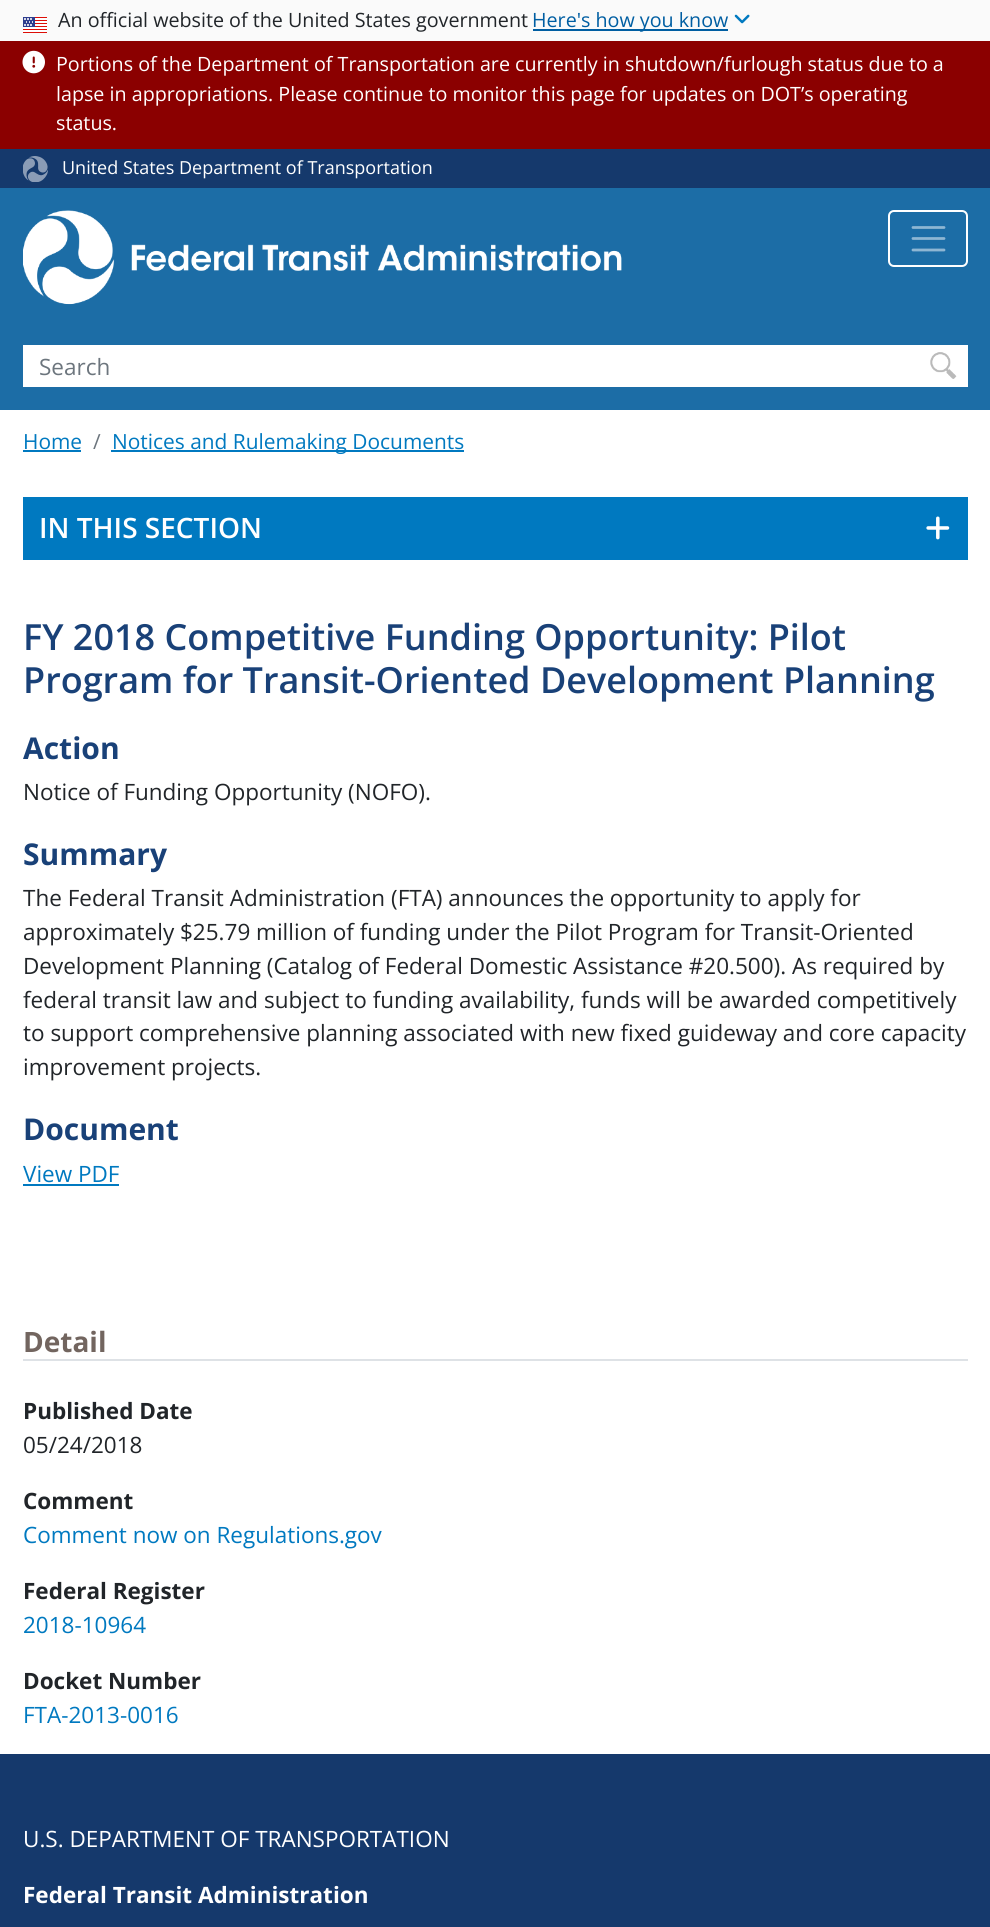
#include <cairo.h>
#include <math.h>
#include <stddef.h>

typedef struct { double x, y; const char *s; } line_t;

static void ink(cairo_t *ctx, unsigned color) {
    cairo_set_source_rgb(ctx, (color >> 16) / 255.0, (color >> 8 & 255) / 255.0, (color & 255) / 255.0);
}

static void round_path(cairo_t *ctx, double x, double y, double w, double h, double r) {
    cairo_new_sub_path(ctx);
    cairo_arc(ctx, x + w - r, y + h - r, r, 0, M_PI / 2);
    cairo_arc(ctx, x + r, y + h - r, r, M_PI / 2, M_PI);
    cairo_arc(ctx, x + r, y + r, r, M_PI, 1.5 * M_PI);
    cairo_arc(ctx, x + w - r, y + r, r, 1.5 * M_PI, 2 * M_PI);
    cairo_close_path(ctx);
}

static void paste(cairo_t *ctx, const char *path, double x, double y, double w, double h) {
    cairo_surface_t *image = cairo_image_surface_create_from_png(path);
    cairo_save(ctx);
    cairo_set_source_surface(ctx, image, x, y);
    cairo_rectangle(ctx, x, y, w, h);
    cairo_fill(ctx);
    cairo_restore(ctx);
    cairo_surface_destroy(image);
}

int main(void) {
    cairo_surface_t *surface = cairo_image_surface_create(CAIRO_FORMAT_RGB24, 990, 1927);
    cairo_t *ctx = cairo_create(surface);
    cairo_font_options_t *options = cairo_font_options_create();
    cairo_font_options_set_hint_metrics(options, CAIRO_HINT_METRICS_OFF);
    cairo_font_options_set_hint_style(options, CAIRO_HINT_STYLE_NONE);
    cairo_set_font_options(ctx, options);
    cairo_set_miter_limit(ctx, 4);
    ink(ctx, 0xFFFFFF);
    cairo_paint(ctx);
    ink(ctx, 0xFAFAFA);
    cairo_rectangle(ctx, 0, 0, 990, 41);
    cairo_fill(ctx);
    paste(ctx, "media/1.png", 23, 17, 24, 16);
    cairo_select_font_face(ctx, "Open Sans", CAIRO_FONT_SLANT_NORMAL, CAIRO_FONT_WEIGHT_NORMAL);
    cairo_set_font_size(ctx, 19.7);
    ink(ctx, 0x212529);
    cairo_move_to(ctx, 58, 27);
    cairo_show_text(ctx, "An official website of the United States government");
    ink(ctx, 0x005EA2);
    cairo_rectangle(ctx, 533, 29, 195, 2);
    cairo_fill(ctx);
    cairo_move_to(ctx, 532, 27);
    cairo_show_text(ctx, "Here's how you know");
    paste(ctx, "media/2.png", 734, 14, 16, 10);
    ink(ctx, 0x8B0000);
    cairo_rectangle(ctx, 0, 41, 990, 108);
    cairo_fill(ctx);
    paste(ctx, "media/3.png", 22, 50, 23, 24);
    ink(ctx, 0xFFFFFF);
    {
        static const line_t items[] = {
            {56, 71, "Portions of the Department of Transportation are currently in shutdown/furlough status due to a"},
            {56, 101, "lapse in appropriations. Please continue to monitor this page for updates on DOT’s operating"},
            {56, 130, "status."},
        };
        for (size_t i = 0; i < sizeof items / sizeof *items; i++) {
            cairo_move_to(ctx, items[i].x, items[i].y);
            cairo_show_text(ctx, items[i].s);
        }
    }
    ink(ctx, 0x15396C);
    cairo_rectangle(ctx, 0, 149, 990, 39);
    cairo_fill(ctx);
    paste(ctx, "media/4.png", 23, 156, 25, 26);
    cairo_set_font_size(ctx, 18);
    ink(ctx, 0xFFFFFF);
    cairo_move_to(ctx, 62, 174);
    cairo_show_text(ctx, "United States Department of Transportation");
    ink(ctx, 0x1C6DA6);
    cairo_rectangle(ctx, 0, 188, 990, 222);
    cairo_fill(ctx);
    paste(ctx, "media/5.png", 23, 210, 599, 95);
    round_path(ctx, 889, 211, 78, 55, 5);
    ink(ctx, 0xFFFFFF);
    cairo_stroke(ctx);
    cairo_new_path(ctx);
    cairo_move_to(ctx, 913, 227.5);
    cairo_line_to(ctx, 944, 227.5);
    cairo_move_to(ctx, 913, 238.5);
    cairo_line_to(ctx, 944, 238.5);
    cairo_move_to(ctx, 913, 250);
    cairo_line_to(ctx, 944, 250);
    ink(ctx, 0x8EB6D3);
    cairo_set_line_width(ctx, 2.8);
    cairo_set_line_cap(ctx, CAIRO_LINE_CAP_ROUND);
    cairo_stroke(ctx);
    ink(ctx, 0xFFFFFF);
    cairo_rectangle(ctx, 23, 345, 945, 42);
    cairo_fill(ctx);
    cairo_set_font_size(ctx, 22.5);
    ink(ctx, 0x6C757D);
    cairo_move_to(ctx, 39, 375);
    cairo_show_text(ctx, "Search");
    paste(ctx, "media/6.png", 930, 352, 27, 27);
    cairo_set_font_size(ctx, 20.9);
    ink(ctx, 0x0079C0);
    cairo_move_to(ctx, 23, 449);
    cairo_show_text(ctx, "Home");
    cairo_rectangle(ctx, 23, 450, 58, 2);
    cairo_fill(ctx);
    ink(ctx, 0x6C757D);
    cairo_move_to(ctx, 93, 449);
    cairo_show_text(ctx, "/");
    ink(ctx, 0x0079C0);
    cairo_rectangle(ctx, 111, 450, 353, 2);
    cairo_fill(ctx);
    cairo_move_to(ctx, 112, 449);
    cairo_show_text(ctx, "Notices and Rulemaking Documents");
    cairo_rectangle(ctx, 23, 497, 945, 63);
    cairo_fill(ctx);
    cairo_select_font_face(ctx, "Open Sans SemiBold", CAIRO_FONT_SLANT_NORMAL, CAIRO_FONT_WEIGHT_NORMAL);
    cairo_set_font_size(ctx, 28);
    ink(ctx, 0xFFFFFF);
    cairo_move_to(ctx, 39, 538);
    cairo_show_text(ctx, "IN THIS SECTION");
    paste(ctx, "media/7.png", 926, 516, 24, 24);
    cairo_set_font_size(ctx, 36);
    ink(ctx, 0x194178);
    cairo_move_to(ctx, 23, 650);
    cairo_show_text(ctx, "FY 2018 Competitive Funding Opportunity: Pilot");
    cairo_move_to(ctx, 23, 693);
    cairo_show_text(ctx, "Program for Transit-Oriented Development Planning");
    cairo_select_font_face(ctx, "Open Sans", CAIRO_FONT_SLANT_NORMAL, CAIRO_FONT_WEIGHT_BOLD);
    cairo_set_font_size(ctx, 30);
    cairo_move_to(ctx, 23, 759);
    cairo_show_text(ctx, "Action");
    cairo_select_font_face(ctx, "Open Sans", CAIRO_FONT_SLANT_NORMAL, CAIRO_FONT_WEIGHT_NORMAL);
    cairo_set_font_size(ctx, 22.5);
    ink(ctx, 0x212529);
    cairo_move_to(ctx, 23, 800);
    cairo_show_text(ctx, "Notice of Funding Opportunity (NOFO).");
    cairo_select_font_face(ctx, "Open Sans", CAIRO_FONT_SLANT_NORMAL, CAIRO_FONT_WEIGHT_BOLD);
    cairo_set_font_size(ctx, 30);
    ink(ctx, 0x194178);
    cairo_move_to(ctx, 23, 865);
    cairo_show_text(ctx, "Summary");
    cairo_select_font_face(ctx, "Open Sans", CAIRO_FONT_SLANT_NORMAL, CAIRO_FONT_WEIGHT_NORMAL);
    cairo_set_font_size(ctx, 22.5);
    ink(ctx, 0x212529);
    {
        static const line_t items[] = {
            {23, 906, "The Federal Transit Administration (FTA) announces the opportunity to apply for"},
            {23, 940, "approximately $25.79 million of funding under the Pilot Program for Transit-Oriented"},
            {23, 974, "Development Planning (Catalog of Federal Domestic Assistance #20.500). As required by"},
            {23, 1008, "federal transit law and subject to funding availability, funds will be awarded competitively"},
            {23, 1041, "to support comprehensive planning associated with new fixed guideway and core capacity"},
            {23, 1075, "improvement projects."},
        };
        for (size_t i = 0; i < sizeof items / sizeof *items; i++) {
            cairo_move_to(ctx, items[i].x, items[i].y);
            cairo_show_text(ctx, items[i].s);
        }
    }
    cairo_select_font_face(ctx, "Open Sans", CAIRO_FONT_SLANT_NORMAL, CAIRO_FONT_WEIGHT_BOLD);
    cairo_set_font_size(ctx, 30);
    ink(ctx, 0x194178);
    cairo_move_to(ctx, 23, 1140);
    cairo_show_text(ctx, "Document");
    cairo_select_font_face(ctx, "Open Sans", CAIRO_FONT_SLANT_NORMAL, CAIRO_FONT_WEIGHT_NORMAL);
    cairo_set_font_size(ctx, 22.5);
    ink(ctx, 0x0079C0);
    cairo_move_to(ctx, 23, 1182);
    cairo_show_text(ctx, "View PDF");
    cairo_rectangle(ctx, 23, 1184, 96, 2);
    cairo_fill(ctx);
    ink(ctx, 0xDEE2E6);
    cairo_rectangle(ctx, 23, 1359, 945, 2);
    cairo_fill(ctx);
    cairo_select_font_face(ctx, "Open Sans", CAIRO_FONT_SLANT_NORMAL, CAIRO_FONT_WEIGHT_BOLD);
    cairo_set_font_size(ctx, 28);
    ink(ctx, 0x72655F);
    cairo_move_to(ctx, 23, 1352);
    cairo_show_text(ctx, "Detail");
    cairo_set_font_size(ctx, 22.5);
    ink(ctx, 0x212529);
    cairo_move_to(ctx, 23, 1419);
    cairo_show_text(ctx, "Published Date");
    cairo_select_font_face(ctx, "Open Sans", CAIRO_FONT_SLANT_NORMAL, CAIRO_FONT_WEIGHT_NORMAL);
    cairo_move_to(ctx, 23, 1453);
    cairo_show_text(ctx, "05/24/2018");
    cairo_select_font_face(ctx, "Open Sans", CAIRO_FONT_SLANT_NORMAL, CAIRO_FONT_WEIGHT_BOLD);
    cairo_move_to(ctx, 23, 1509);
    cairo_show_text(ctx, "Comment");
    cairo_select_font_face(ctx, "Open Sans", CAIRO_FONT_SLANT_NORMAL, CAIRO_FONT_WEIGHT_NORMAL);
    ink(ctx, 0x0079C0);
    cairo_move_to(ctx, 23, 1543);
    cairo_show_text(ctx, "Comment now on Regulations.gov");
    cairo_select_font_face(ctx, "Open Sans", CAIRO_FONT_SLANT_NORMAL, CAIRO_FONT_WEIGHT_BOLD);
    ink(ctx, 0x212529);
    cairo_move_to(ctx, 23, 1599);
    cairo_show_text(ctx, "Federal Register");
    cairo_select_font_face(ctx, "Open Sans", CAIRO_FONT_SLANT_NORMAL, CAIRO_FONT_WEIGHT_NORMAL);
    ink(ctx, 0x0079C0);
    cairo_move_to(ctx, 23, 1633);
    cairo_show_text(ctx, "2018-10964");
    cairo_select_font_face(ctx, "Open Sans", CAIRO_FONT_SLANT_NORMAL, CAIRO_FONT_WEIGHT_BOLD);
    ink(ctx, 0x212529);
    cairo_move_to(ctx, 23, 1689);
    cairo_show_text(ctx, "Docket Number");
    cairo_select_font_face(ctx, "Open Sans", CAIRO_FONT_SLANT_NORMAL, CAIRO_FONT_WEIGHT_NORMAL);
    ink(ctx, 0x0079C0);
    cairo_move_to(ctx, 23, 1723);
    cairo_show_text(ctx, "FTA-2013-0016");
    ink(ctx, 0x15396C);
    cairo_rectangle(ctx, 0, 1754, 990, 173);
    cairo_fill(ctx);
    ink(ctx, 0xFFFFFF);
    cairo_move_to(ctx, 23, 1847);
    cairo_show_text(ctx, "U.S. DEPARTMENT OF TRANSPORTATION");
    cairo_select_font_face(ctx, "Open Sans", CAIRO_FONT_SLANT_NORMAL, CAIRO_FONT_WEIGHT_BOLD);
    cairo_move_to(ctx, 23, 1903);
    cairo_show_text(ctx, "Federal Transit Administration");
    cairo_surface_write_to_png(surface, "image.png");
    cairo_font_options_destroy(options);
    cairo_destroy(ctx);
    cairo_surface_destroy(surface);
    return 0;
}
